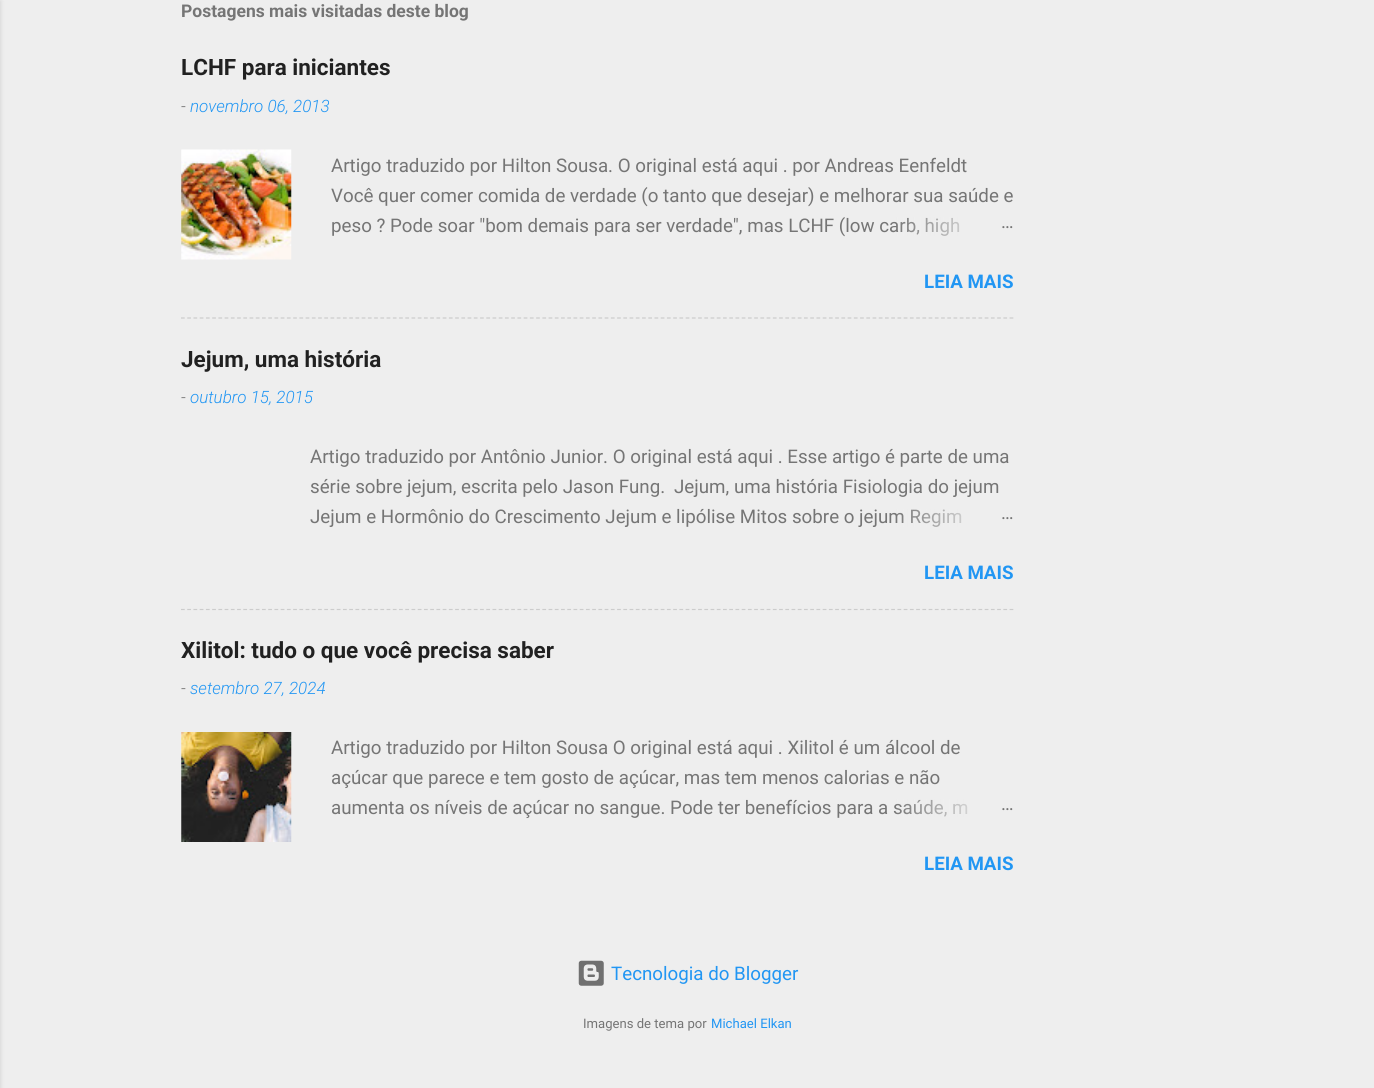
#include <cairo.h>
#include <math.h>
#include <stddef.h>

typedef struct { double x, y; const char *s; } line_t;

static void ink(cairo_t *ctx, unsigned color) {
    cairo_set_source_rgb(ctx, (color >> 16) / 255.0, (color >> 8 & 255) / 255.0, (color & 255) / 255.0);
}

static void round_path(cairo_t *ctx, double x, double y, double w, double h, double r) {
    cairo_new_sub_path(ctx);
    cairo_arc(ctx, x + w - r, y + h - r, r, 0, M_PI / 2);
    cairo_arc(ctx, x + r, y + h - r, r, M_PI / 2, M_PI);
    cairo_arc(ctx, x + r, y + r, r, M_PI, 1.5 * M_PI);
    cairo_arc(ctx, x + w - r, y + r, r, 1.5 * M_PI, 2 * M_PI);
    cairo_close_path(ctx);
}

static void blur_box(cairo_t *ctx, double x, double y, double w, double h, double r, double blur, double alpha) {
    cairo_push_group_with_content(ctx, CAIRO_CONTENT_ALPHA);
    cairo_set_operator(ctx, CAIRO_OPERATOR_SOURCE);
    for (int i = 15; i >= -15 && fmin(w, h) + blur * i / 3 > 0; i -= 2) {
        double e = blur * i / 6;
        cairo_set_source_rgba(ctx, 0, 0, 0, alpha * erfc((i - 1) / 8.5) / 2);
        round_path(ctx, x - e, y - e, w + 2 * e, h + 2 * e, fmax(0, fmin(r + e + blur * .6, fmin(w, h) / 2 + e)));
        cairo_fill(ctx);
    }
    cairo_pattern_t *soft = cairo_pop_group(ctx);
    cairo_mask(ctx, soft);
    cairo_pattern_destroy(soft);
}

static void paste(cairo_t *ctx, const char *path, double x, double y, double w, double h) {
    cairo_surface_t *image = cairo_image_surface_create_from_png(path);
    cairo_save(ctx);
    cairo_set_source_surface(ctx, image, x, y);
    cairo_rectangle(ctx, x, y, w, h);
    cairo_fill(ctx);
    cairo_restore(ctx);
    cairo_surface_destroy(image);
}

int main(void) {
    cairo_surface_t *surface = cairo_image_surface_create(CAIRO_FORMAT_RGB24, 1374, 1088);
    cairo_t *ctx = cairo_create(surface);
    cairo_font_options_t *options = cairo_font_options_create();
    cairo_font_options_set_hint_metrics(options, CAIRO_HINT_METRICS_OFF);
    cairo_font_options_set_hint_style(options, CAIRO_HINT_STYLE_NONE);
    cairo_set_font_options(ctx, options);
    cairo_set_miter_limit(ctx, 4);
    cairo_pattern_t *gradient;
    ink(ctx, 0xEEEEEE);
    cairo_paint(ctx);
    ink(ctx, 0x000000);
    blur_box(ctx, -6, 1, 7, 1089, 0, 2, 0.1);
    cairo_select_font_face(ctx, "Roboto", CAIRO_FONT_SLANT_NORMAL, CAIRO_FONT_WEIGHT_BOLD);
    cairo_set_font_size(ctx, 17.5);
    ink(ctx, 0x757575);
    cairo_move_to(ctx, 181, 17);
    cairo_show_text(ctx, "Postagens mais visitadas deste blog");
    cairo_set_font_size(ctx, 22.5);
    ink(ctx, 0x212121);
    cairo_move_to(ctx, 181, 75);
    cairo_show_text(ctx, "LCHF para iniciantes");
    cairo_select_font_face(ctx, "Roboto Light", CAIRO_FONT_SLANT_ITALIC, CAIRO_FONT_WEIGHT_NORMAL);
    cairo_set_font_size(ctx, 17);
    ink(ctx, 0x6D6D6D);
    cairo_move_to(ctx, 181, 112);
    cairo_show_text(ctx, "-");
    ink(ctx, 0x2196F3);
    cairo_move_to(ctx, 190, 112);
    cairo_show_text(ctx, "novembro 06, 2013");
    paste(ctx, "media/1.png", 181, 149, 111, 111);
    cairo_select_font_face(ctx, "Roboto", CAIRO_FONT_SLANT_NORMAL, CAIRO_FONT_WEIGHT_NORMAL);
    cairo_set_font_size(ctx, 18.75);
    ink(ctx, 0x757575);
    {
        static const line_t items[] = {
            {331, 172, "Artigo traduzido por Hilton Sousa. O original está aqui . por Andreas Eenfeldt"},
            {331, 202, "Você quer comer comida de verdade (o tanto que desejar) e melhorar sua saúde e"},
            {331, 232, "peso ? Pode soar \"bom demais para ser verdade\", mas LCHF (low carb, high"},
        };
        for (size_t i = 0; i < sizeof items / sizeof *items; i++) {
            cairo_move_to(ctx, items[i].x, items[i].y);
            cairo_show_text(ctx, items[i].s);
        }
    }
    gradient = cairo_pattern_create_linear(1014, 225, 894, 225);
    cairo_pattern_add_color_stop_rgba(gradient, 0, 0.933, 0.933, 0.933, 1);
    cairo_pattern_add_color_stop_rgba(gradient, 0.2, 0.933, 0.933, 0.933, 1);
    cairo_pattern_add_color_stop_rgba(gradient, 1, 0.933, 0.933, 0.933, 0);
    cairo_set_source(ctx, gradient);
    cairo_pattern_destroy(gradient);
    cairo_rectangle(ctx, 896, 217, 64, 19);
    cairo_fill(ctx);
    ink(ctx, 0x757575);
    cairo_move_to(ctx, 1001, 228);
    cairo_show_text(ctx, "…");
    cairo_select_font_face(ctx, "Roboto", CAIRO_FONT_SLANT_NORMAL, CAIRO_FONT_WEIGHT_BOLD);
    ink(ctx, 0x2196F3);
    cairo_move_to(ctx, 924, 288);
    cairo_show_text(ctx, "LEIA MAIS");
    cairo_new_path(ctx);
    cairo_move_to(ctx, 181, 318);
    cairo_line_to(ctx, 1014, 318);
    ink(ctx, 0xCCCCCC);
    cairo_set_line_width(ctx, 1.2);
    cairo_set_dash(ctx, (double[]){3.75, 2.48}, 2, 0);
    cairo_stroke(ctx);
    cairo_set_font_size(ctx, 22.5);
    ink(ctx, 0x212121);
    cairo_move_to(ctx, 181, 367);
    cairo_show_text(ctx, "Jejum, uma história");
    cairo_select_font_face(ctx, "Roboto Light", CAIRO_FONT_SLANT_ITALIC, CAIRO_FONT_WEIGHT_NORMAL);
    cairo_set_font_size(ctx, 17);
    ink(ctx, 0x6D6D6D);
    cairo_move_to(ctx, 181, 403);
    cairo_show_text(ctx, "-");
    ink(ctx, 0x2196F3);
    cairo_move_to(ctx, 190, 403);
    cairo_show_text(ctx, "outubro 15, 2015");
    cairo_select_font_face(ctx, "Roboto", CAIRO_FONT_SLANT_NORMAL, CAIRO_FONT_WEIGHT_NORMAL);
    cairo_set_font_size(ctx, 18.75);
    ink(ctx, 0x757575);
    {
        static const line_t items[] = {
            {310, 463, "Artigo traduzido por Antônio Junior. O original está aqui . Esse artigo é parte de uma"},
            {310, 493, "série sobre jejum, escrita pelo Jason Fung."},
            {674, 493, "Jejum, uma história Fisiologia do jejum"},
            {310, 523, "Jejum e Hormônio do Crescimento Jejum e lipólise Mitos sobre o jejum Regim"},
        };
        for (size_t i = 0; i < sizeof items / sizeof *items; i++) {
            cairo_move_to(ctx, items[i].x, items[i].y);
            cairo_show_text(ctx, items[i].s);
        }
    }
    gradient = cairo_pattern_create_linear(1014, 516, 894, 516);
    cairo_pattern_add_color_stop_rgba(gradient, 0, 0.933, 0.933, 0.933, 1);
    cairo_pattern_add_color_stop_rgba(gradient, 0.2, 0.933, 0.933, 0.933, 1);
    cairo_pattern_add_color_stop_rgba(gradient, 1, 0.933, 0.933, 0.933, 0);
    cairo_set_source(ctx, gradient);
    cairo_pattern_destroy(gradient);
    cairo_rectangle(ctx, 896, 509, 66, 18);
    cairo_fill(ctx);
    ink(ctx, 0x757575);
    cairo_move_to(ctx, 1001, 519);
    cairo_show_text(ctx, "…");
    cairo_select_font_face(ctx, "Roboto", CAIRO_FONT_SLANT_NORMAL, CAIRO_FONT_WEIGHT_BOLD);
    ink(ctx, 0x2196F3);
    cairo_move_to(ctx, 924, 579);
    cairo_show_text(ctx, "LEIA MAIS");
    cairo_new_path(ctx);
    cairo_move_to(ctx, 181, 609.5);
    cairo_line_to(ctx, 1014, 609.5);
    ink(ctx, 0xCCCCCC);
    cairo_stroke(ctx);
    cairo_set_font_size(ctx, 22.5);
    ink(ctx, 0x212121);
    cairo_move_to(ctx, 181, 658);
    cairo_show_text(ctx, "Xilitol: tudo o que você precisa saber");
    cairo_select_font_face(ctx, "Roboto Light", CAIRO_FONT_SLANT_ITALIC, CAIRO_FONT_WEIGHT_NORMAL);
    cairo_set_font_size(ctx, 17);
    ink(ctx, 0x6D6D6D);
    cairo_move_to(ctx, 181, 694);
    cairo_show_text(ctx, "-");
    ink(ctx, 0x2196F3);
    cairo_move_to(ctx, 190, 694);
    cairo_show_text(ctx, "setembro 27, 2024");
    paste(ctx, "media/2.png", 181, 732, 111, 110);
    cairo_select_font_face(ctx, "Roboto", CAIRO_FONT_SLANT_NORMAL, CAIRO_FONT_WEIGHT_NORMAL);
    cairo_set_font_size(ctx, 18.75);
    ink(ctx, 0x757575);
    {
        static const line_t items[] = {
            {331, 754, "Artigo traduzido por Hilton Sousa O original está aqui . Xilitol é um álcool de"},
            {331, 784, "açúcar que parece e tem gosto de açúcar, mas tem menos calorias e não"},
            {331, 814, "aumenta os níveis de açúcar no sangue. Pode ter benefícios para a saúde, m"},
        };
        for (size_t i = 0; i < sizeof items / sizeof *items; i++) {
            cairo_move_to(ctx, items[i].x, items[i].y);
            cairo_show_text(ctx, items[i].s);
        }
    }
    gradient = cairo_pattern_create_linear(1014, 808, 894, 808);
    cairo_pattern_add_color_stop_rgba(gradient, 0, 0.933, 0.933, 0.933, 1);
    cairo_pattern_add_color_stop_rgba(gradient, 0.2, 0.933, 0.933, 0.933, 1);
    cairo_pattern_add_color_stop_rgba(gradient, 1, 0.933, 0.933, 0.933, 0);
    cairo_set_source(ctx, gradient);
    cairo_pattern_destroy(gradient);
    cairo_rectangle(ctx, 896, 799, 72, 18);
    cairo_fill(ctx);
    ink(ctx, 0x757575);
    cairo_move_to(ctx, 1001, 810);
    cairo_show_text(ctx, "…");
    cairo_select_font_face(ctx, "Roboto", CAIRO_FONT_SLANT_NORMAL, CAIRO_FONT_WEIGHT_BOLD);
    ink(ctx, 0x2196F3);
    cairo_move_to(ctx, 924, 870);
    cairo_show_text(ctx, "LEIA MAIS");
    paste(ctx, "media/3.png", 578, 960, 26, 26);
    cairo_select_font_face(ctx, "Roboto", CAIRO_FONT_SLANT_NORMAL, CAIRO_FONT_WEIGHT_NORMAL);
    cairo_move_to(ctx, 611, 980);
    cairo_show_text(ctx, "Tecnologia do Blogger");
    cairo_set_font_size(ctx, 13.1);
    ink(ctx, 0x757575);
    cairo_move_to(ctx, 583, 1028);
    cairo_show_text(ctx, "Imagens de tema por");
    ink(ctx, 0x2196F3);
    cairo_move_to(ctx, 711, 1028);
    cairo_show_text(ctx, "Michael Elkan");
    cairo_surface_write_to_png(surface, "image.png");
    cairo_font_options_destroy(options);
    cairo_destroy(ctx);
    cairo_surface_destroy(surface);
    return 0;
}
